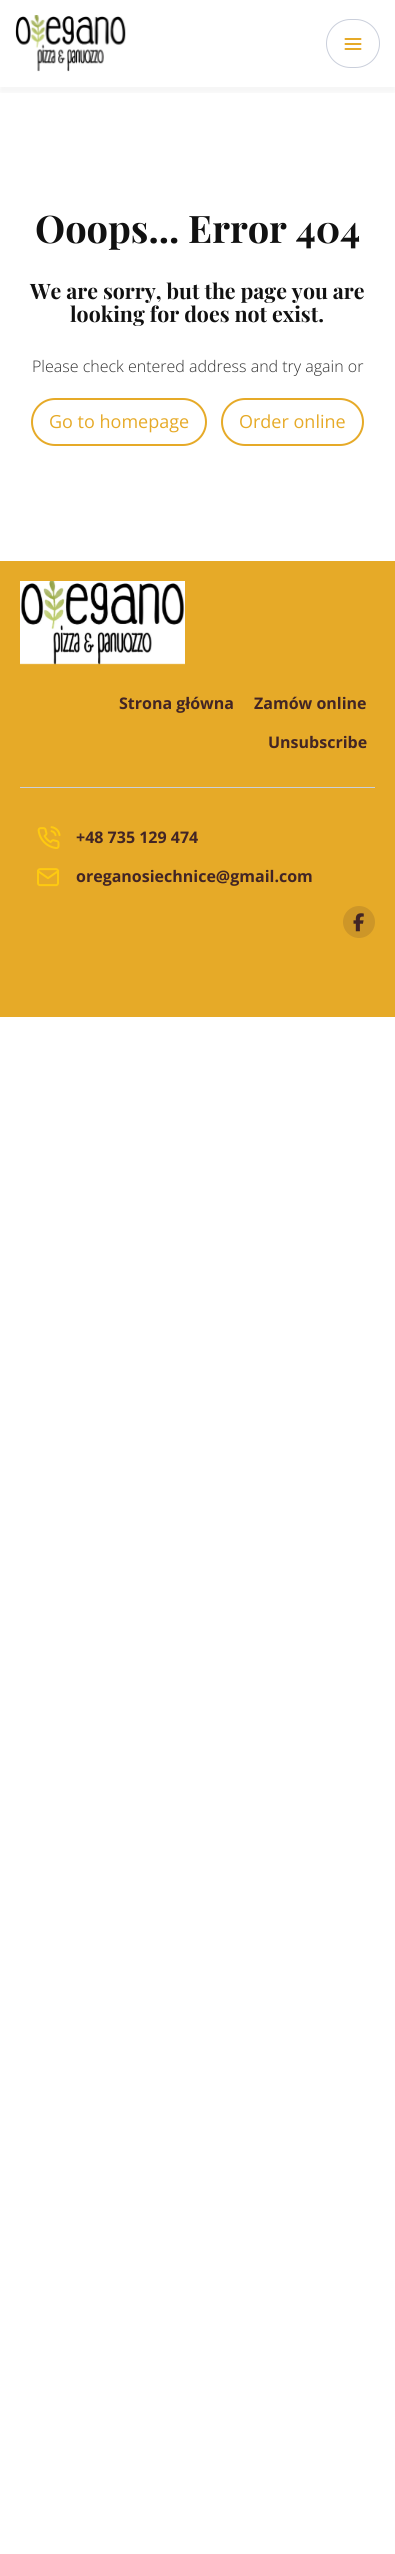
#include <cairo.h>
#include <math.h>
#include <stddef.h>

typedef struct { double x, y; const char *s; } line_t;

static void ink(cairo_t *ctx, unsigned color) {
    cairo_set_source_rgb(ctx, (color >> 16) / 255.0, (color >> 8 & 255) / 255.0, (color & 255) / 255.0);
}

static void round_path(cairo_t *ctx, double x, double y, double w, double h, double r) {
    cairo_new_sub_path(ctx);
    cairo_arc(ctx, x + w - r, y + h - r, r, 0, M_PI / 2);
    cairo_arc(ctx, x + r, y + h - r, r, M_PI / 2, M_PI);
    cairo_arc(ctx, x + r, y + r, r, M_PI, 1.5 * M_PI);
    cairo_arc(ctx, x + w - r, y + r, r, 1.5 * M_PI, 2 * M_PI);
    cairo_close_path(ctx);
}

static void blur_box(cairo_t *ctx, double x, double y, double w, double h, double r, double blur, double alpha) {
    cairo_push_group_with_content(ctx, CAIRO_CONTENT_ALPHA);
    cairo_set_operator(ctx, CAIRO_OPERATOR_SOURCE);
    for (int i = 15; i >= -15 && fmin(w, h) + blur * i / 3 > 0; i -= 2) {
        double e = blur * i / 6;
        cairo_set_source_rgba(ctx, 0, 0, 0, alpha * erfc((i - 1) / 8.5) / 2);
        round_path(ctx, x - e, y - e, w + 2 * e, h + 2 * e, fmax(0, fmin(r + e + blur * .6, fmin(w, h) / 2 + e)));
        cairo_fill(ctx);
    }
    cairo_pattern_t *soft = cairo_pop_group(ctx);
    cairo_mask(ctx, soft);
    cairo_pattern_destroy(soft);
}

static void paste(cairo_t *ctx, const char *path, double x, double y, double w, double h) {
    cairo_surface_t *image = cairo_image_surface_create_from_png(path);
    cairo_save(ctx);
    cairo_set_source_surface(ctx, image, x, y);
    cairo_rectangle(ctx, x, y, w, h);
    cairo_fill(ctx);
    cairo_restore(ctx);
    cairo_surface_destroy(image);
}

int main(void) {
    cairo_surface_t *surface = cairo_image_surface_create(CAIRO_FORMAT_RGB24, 395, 2554);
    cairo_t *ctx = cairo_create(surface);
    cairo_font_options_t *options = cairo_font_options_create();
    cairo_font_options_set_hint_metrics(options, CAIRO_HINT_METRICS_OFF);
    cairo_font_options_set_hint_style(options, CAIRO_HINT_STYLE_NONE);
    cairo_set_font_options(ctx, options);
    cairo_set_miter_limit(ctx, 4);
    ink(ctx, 0xFFFFFF);
    cairo_paint(ctx);
    cairo_save(ctx);
    cairo_rectangle(ctx, 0, 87, 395, 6);
    cairo_clip(ctx);
    ink(ctx, 0x000000);
    blur_box(ctx, 0, 5, 395, 87, 0, 5, 0.05);
    cairo_restore(ctx);
    paste(ctx, "media/1.png", 15, 15, 111, 57);
    round_path(ctx, 326.5, 19.5, 53, 48, 24);
    ink(ctx, 0xCACFDB);
    cairo_set_line_width(ctx, 1);
    cairo_stroke(ctx);
    paste(ctx, "media/2.png", 344, 38, 18, 12);
    cairo_select_font_face(ctx, "Playfair Display", CAIRO_FONT_SLANT_NORMAL, CAIRO_FONT_WEIGHT_BOLD);
    cairo_set_font_size(ctx, 38);
    ink(ctx, 0x111111);
    cairo_move_to(ctx, 35, 243);
    cairo_show_text(ctx, "Ooops... Error 404");
    cairo_set_font_size(ctx, 21.3);
    cairo_move_to(ctx, 30, 299);
    cairo_show_text(ctx, "We are sorry, but the page you are");
    cairo_move_to(ctx, 70, 322);
    cairo_show_text(ctx, "looking for does not exist.");
    cairo_select_font_face(ctx, "Open Sans Light", CAIRO_FONT_SLANT_NORMAL, CAIRO_FONT_WEIGHT_NORMAL);
    cairo_set_font_size(ctx, 16);
    ink(ctx, 0x333333);
    cairo_move_to(ctx, 32, 372);
    cairo_show_text(ctx, "Please check entered address and try again or");
    round_path(ctx, 32, 399, 174, 46, 23);
    ink(ctx, 0xE6AA28);
    cairo_set_line_width(ctx, 2);
    cairo_stroke(ctx);
    cairo_select_font_face(ctx, "Open Sans", CAIRO_FONT_SLANT_NORMAL, CAIRO_FONT_WEIGHT_NORMAL);
    cairo_set_font_size(ctx, 18);
    cairo_move_to(ctx, 49, 428);
    cairo_show_text(ctx, "Go to homepage");
    round_path(ctx, 222, 399, 141, 46, 23);
    cairo_stroke(ctx);
    cairo_move_to(ctx, 239, 428);
    cairo_show_text(ctx, "Order online");
    cairo_rectangle(ctx, 0, 561, 395, 456);
    cairo_fill(ctx);
    paste(ctx, "media/3.png", 20, 581, 165, 84);
    cairo_select_font_face(ctx, "Open Sans", CAIRO_FONT_SLANT_NORMAL, CAIRO_FONT_WEIGHT_BOLD);
    cairo_set_font_size(ctx, 16);
    ink(ctx, 0x422525);
    {
        static const line_t items[] = {
            {119, 709, "Strona główna"},
            {254, 709, "Zamów online"},
            {268, 748, "Unsubscribe"},
        };
        for (size_t i = 0; i < sizeof items / sizeof *items; i++) {
            cairo_move_to(ctx, items[i].x, items[i].y);
            cairo_show_text(ctx, items[i].s);
        }
    }
    ink(ctx, 0xCACFDB);
    cairo_rectangle(ctx, 20, 787, 355, 1);
    cairo_fill(ctx);
    paste(ctx, "media/4.png", 37, 826, 24, 23);
    ink(ctx, 0x422525);
    cairo_move_to(ctx, 76, 843);
    cairo_show_text(ctx, "+48 735 129 474");
    paste(ctx, "media/5.png", 37, 868, 22, 19);
    cairo_move_to(ctx, 76, 882);
    cairo_show_text(ctx, "oreganosiechnice@gmail.com");
    ink(ctx, 0xCD9628);
    cairo_new_path(ctx);
    cairo_arc(ctx, 359, 922, 16, 0, 2 * M_PI);
    cairo_fill(ctx);
    paste(ctx, "media/6.png", 353, 913, 11, 19);
    cairo_surface_write_to_png(surface, "image.png");
    cairo_font_options_destroy(options);
    cairo_destroy(ctx);
    cairo_surface_destroy(surface);
    return 0;
}
